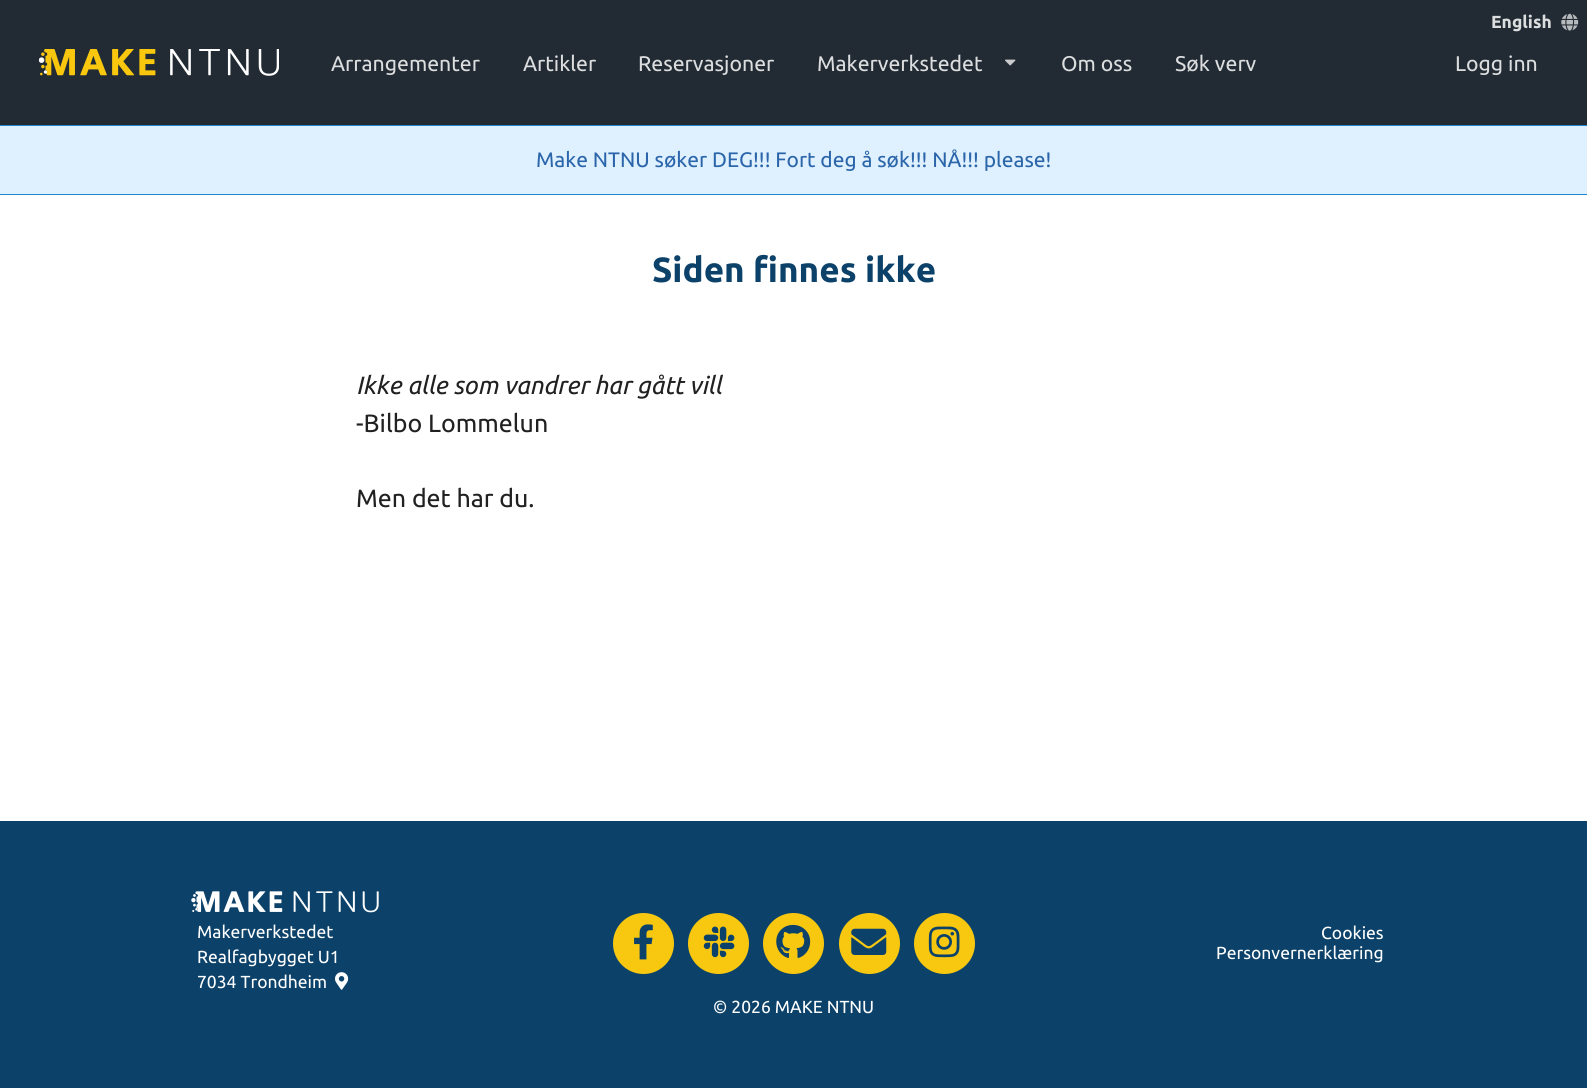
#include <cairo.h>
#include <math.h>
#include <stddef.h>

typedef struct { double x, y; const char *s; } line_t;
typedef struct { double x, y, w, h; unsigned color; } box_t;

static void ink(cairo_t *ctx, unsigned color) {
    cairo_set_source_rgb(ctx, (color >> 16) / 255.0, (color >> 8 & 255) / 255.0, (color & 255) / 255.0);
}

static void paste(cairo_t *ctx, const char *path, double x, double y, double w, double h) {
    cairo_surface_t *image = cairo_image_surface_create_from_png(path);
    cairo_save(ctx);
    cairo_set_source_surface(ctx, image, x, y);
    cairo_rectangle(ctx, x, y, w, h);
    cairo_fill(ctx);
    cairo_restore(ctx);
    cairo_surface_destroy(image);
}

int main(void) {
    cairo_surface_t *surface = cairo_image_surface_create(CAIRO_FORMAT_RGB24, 1587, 1088);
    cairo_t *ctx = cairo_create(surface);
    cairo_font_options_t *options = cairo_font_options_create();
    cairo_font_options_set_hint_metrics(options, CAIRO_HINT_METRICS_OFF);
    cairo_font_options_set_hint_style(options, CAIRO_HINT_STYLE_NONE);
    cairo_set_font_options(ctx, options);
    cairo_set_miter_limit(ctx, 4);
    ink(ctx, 0xFFFFFF);
    cairo_paint(ctx);
    ink(ctx, 0x222B34);
    cairo_rectangle(ctx, 0, 0, 1587, 125);
    cairo_fill(ctx);
    paste(ctx, "media/1.png", 39, 49, 240, 27);
    cairo_select_font_face(ctx, "Ubuntu", CAIRO_FONT_SLANT_NORMAL, CAIRO_FONT_WEIGHT_NORMAL);
    cairo_set_font_size(ctx, 21.25);
    ink(ctx, 0xDCDDDE);
    {
        static const line_t items[] = {
            {331, 71, "Arrangementer"},
            {523, 71, "Artikler"},
            {638, 71, "Reservasjoner"},
            {817, 71, "Makerverkstedet"},
        };
        for (size_t i = 0; i < sizeof items / sizeof *items; i++) {
            cairo_move_to(ctx, items[i].x, items[i].y);
            cairo_show_text(ctx, items[i].s);
        }
    }
    paste(ctx, "media/2.png", 1005, 59, 11, 7);
    cairo_move_to(ctx, 1061, 71);
    cairo_show_text(ctx, "Om oss");
    cairo_move_to(ctx, 1175, 71);
    cairo_show_text(ctx, "Søk verv");
    cairo_select_font_face(ctx, "Ubuntu", CAIRO_FONT_SLANT_NORMAL, CAIRO_FONT_WEIGHT_BOLD);
    cairo_set_font_size(ctx, 17.5);
    cairo_move_to(ctx, 1491, 28);
    cairo_show_text(ctx, "English");
    paste(ctx, "media/3.png", 1561, 13, 18, 18);
    cairo_select_font_face(ctx, "Ubuntu", CAIRO_FONT_SLANT_NORMAL, CAIRO_FONT_WEIGHT_NORMAL);
    cairo_set_font_size(ctx, 21.25);
    cairo_move_to(ctx, 1455, 71);
    cairo_show_text(ctx, "Logg inn");
    {
        static const box_t items[] = {
            {0, 126, 1587, 68, 0xDFF0FF},
            {0, 125, 1587, 1, 0x2185D0},
            {0, 194, 1587, 1, 0x2185D0},
        };
        for (size_t i = 0; i < sizeof items / sizeof *items; i++) {
            ink(ctx, items[i].color);
            cairo_rectangle(ctx, items[i].x, items[i].y, items[i].w, items[i].h);
            cairo_fill(ctx);
        }
    }
    cairo_set_font_size(ctx, 21);
    ink(ctx, 0x2B66AA);
    cairo_move_to(ctx, 536, 167);
    cairo_show_text(ctx, "Make NTNU søker DEG!!! Fort deg å søk!!! NÅ!!! please!");
    cairo_select_font_face(ctx, "Ubuntu", CAIRO_FONT_SLANT_NORMAL, CAIRO_FONT_WEIGHT_BOLD);
    cairo_set_font_size(ctx, 35);
    ink(ctx, 0x0C426A);
    cairo_move_to(ctx, 652, 282);
    cairo_show_text(ctx, "Siden finnes ikke");
    cairo_select_font_face(ctx, "Ubuntu", CAIRO_FONT_SLANT_ITALIC, CAIRO_FONT_WEIGHT_NORMAL);
    cairo_set_font_size(ctx, 25);
    ink(ctx, 0x212121);
    cairo_move_to(ctx, 356, 394);
    cairo_show_text(ctx, "Ikke alle som vandrer har gått vill");
    cairo_select_font_face(ctx, "Ubuntu", CAIRO_FONT_SLANT_NORMAL, CAIRO_FONT_WEIGHT_NORMAL);
    cairo_move_to(ctx, 356, 432);
    cairo_show_text(ctx, "-Bilbo Lommelun");
    cairo_move_to(ctx, 356, 507);
    cairo_show_text(ctx, "Men det har du.");
    ink(ctx, 0x0C426A);
    cairo_rectangle(ctx, 0, 821, 1587, 267);
    cairo_fill(ctx);
    paste(ctx, "media/4.png", 191, 891, 188, 22);
    cairo_set_font_size(ctx, 17.5);
    ink(ctx, 0xFFFFFF);
    {
        static const line_t items[] = {
            {197, 938, "Makerverkstedet"},
            {197, 963, "Realfagbygget U1"},
            {197, 988, "7034 Trondheim"},
        };
        for (size_t i = 0; i < sizeof items / sizeof *items; i++) {
            cairo_move_to(ctx, items[i].x, items[i].y);
            cairo_show_text(ctx, items[i].s);
        }
    }
    paste(ctx, "media/5.png", 335, 972, 14, 18);
    ink(ctx, 0xF8C811);
    cairo_arc(ctx, 643.5, 943.5, 30.5, 0, 2 * M_PI);
    cairo_fill(ctx);
    paste(ctx, "media/6.png", 634, 924, 19, 36);
    cairo_arc(ctx, 718.5, 943.5, 30.5, 0, 2 * M_PI);
    cairo_fill(ctx);
    paste(ctx, "media/7.png", 703, 926, 32, 32);
    cairo_arc(ctx, 793.5, 943.5, 30.5, 0, 2 * M_PI);
    cairo_fill(ctx);
    paste(ctx, "media/8.png", 776, 924, 35, 34);
    cairo_arc(ctx, 869.5, 943.5, 30.5, 0, 2 * M_PI);
    cairo_fill(ctx);
    paste(ctx, "media/9.png", 851, 928, 36, 27);
    cairo_arc(ctx, 944.5, 943.5, 30.5, 0, 2 * M_PI);
    cairo_fill(ctx);
    paste(ctx, "media/10.png", 928, 926, 32, 32);
    ink(ctx, 0xFFFFFF);
    {
        static const line_t items[] = {
            {1321, 939, "Cookies"},
            {1216, 959, "Personvernerklæring"},
            {713, 1013, "© 2026 MAKE NTNU"},
        };
        for (size_t i = 0; i < sizeof items / sizeof *items; i++) {
            cairo_move_to(ctx, items[i].x, items[i].y);
            cairo_show_text(ctx, items[i].s);
        }
    }
    cairo_surface_write_to_png(surface, "image.png");
    cairo_font_options_destroy(options);
    cairo_destroy(ctx);
    cairo_surface_destroy(surface);
    return 0;
}
